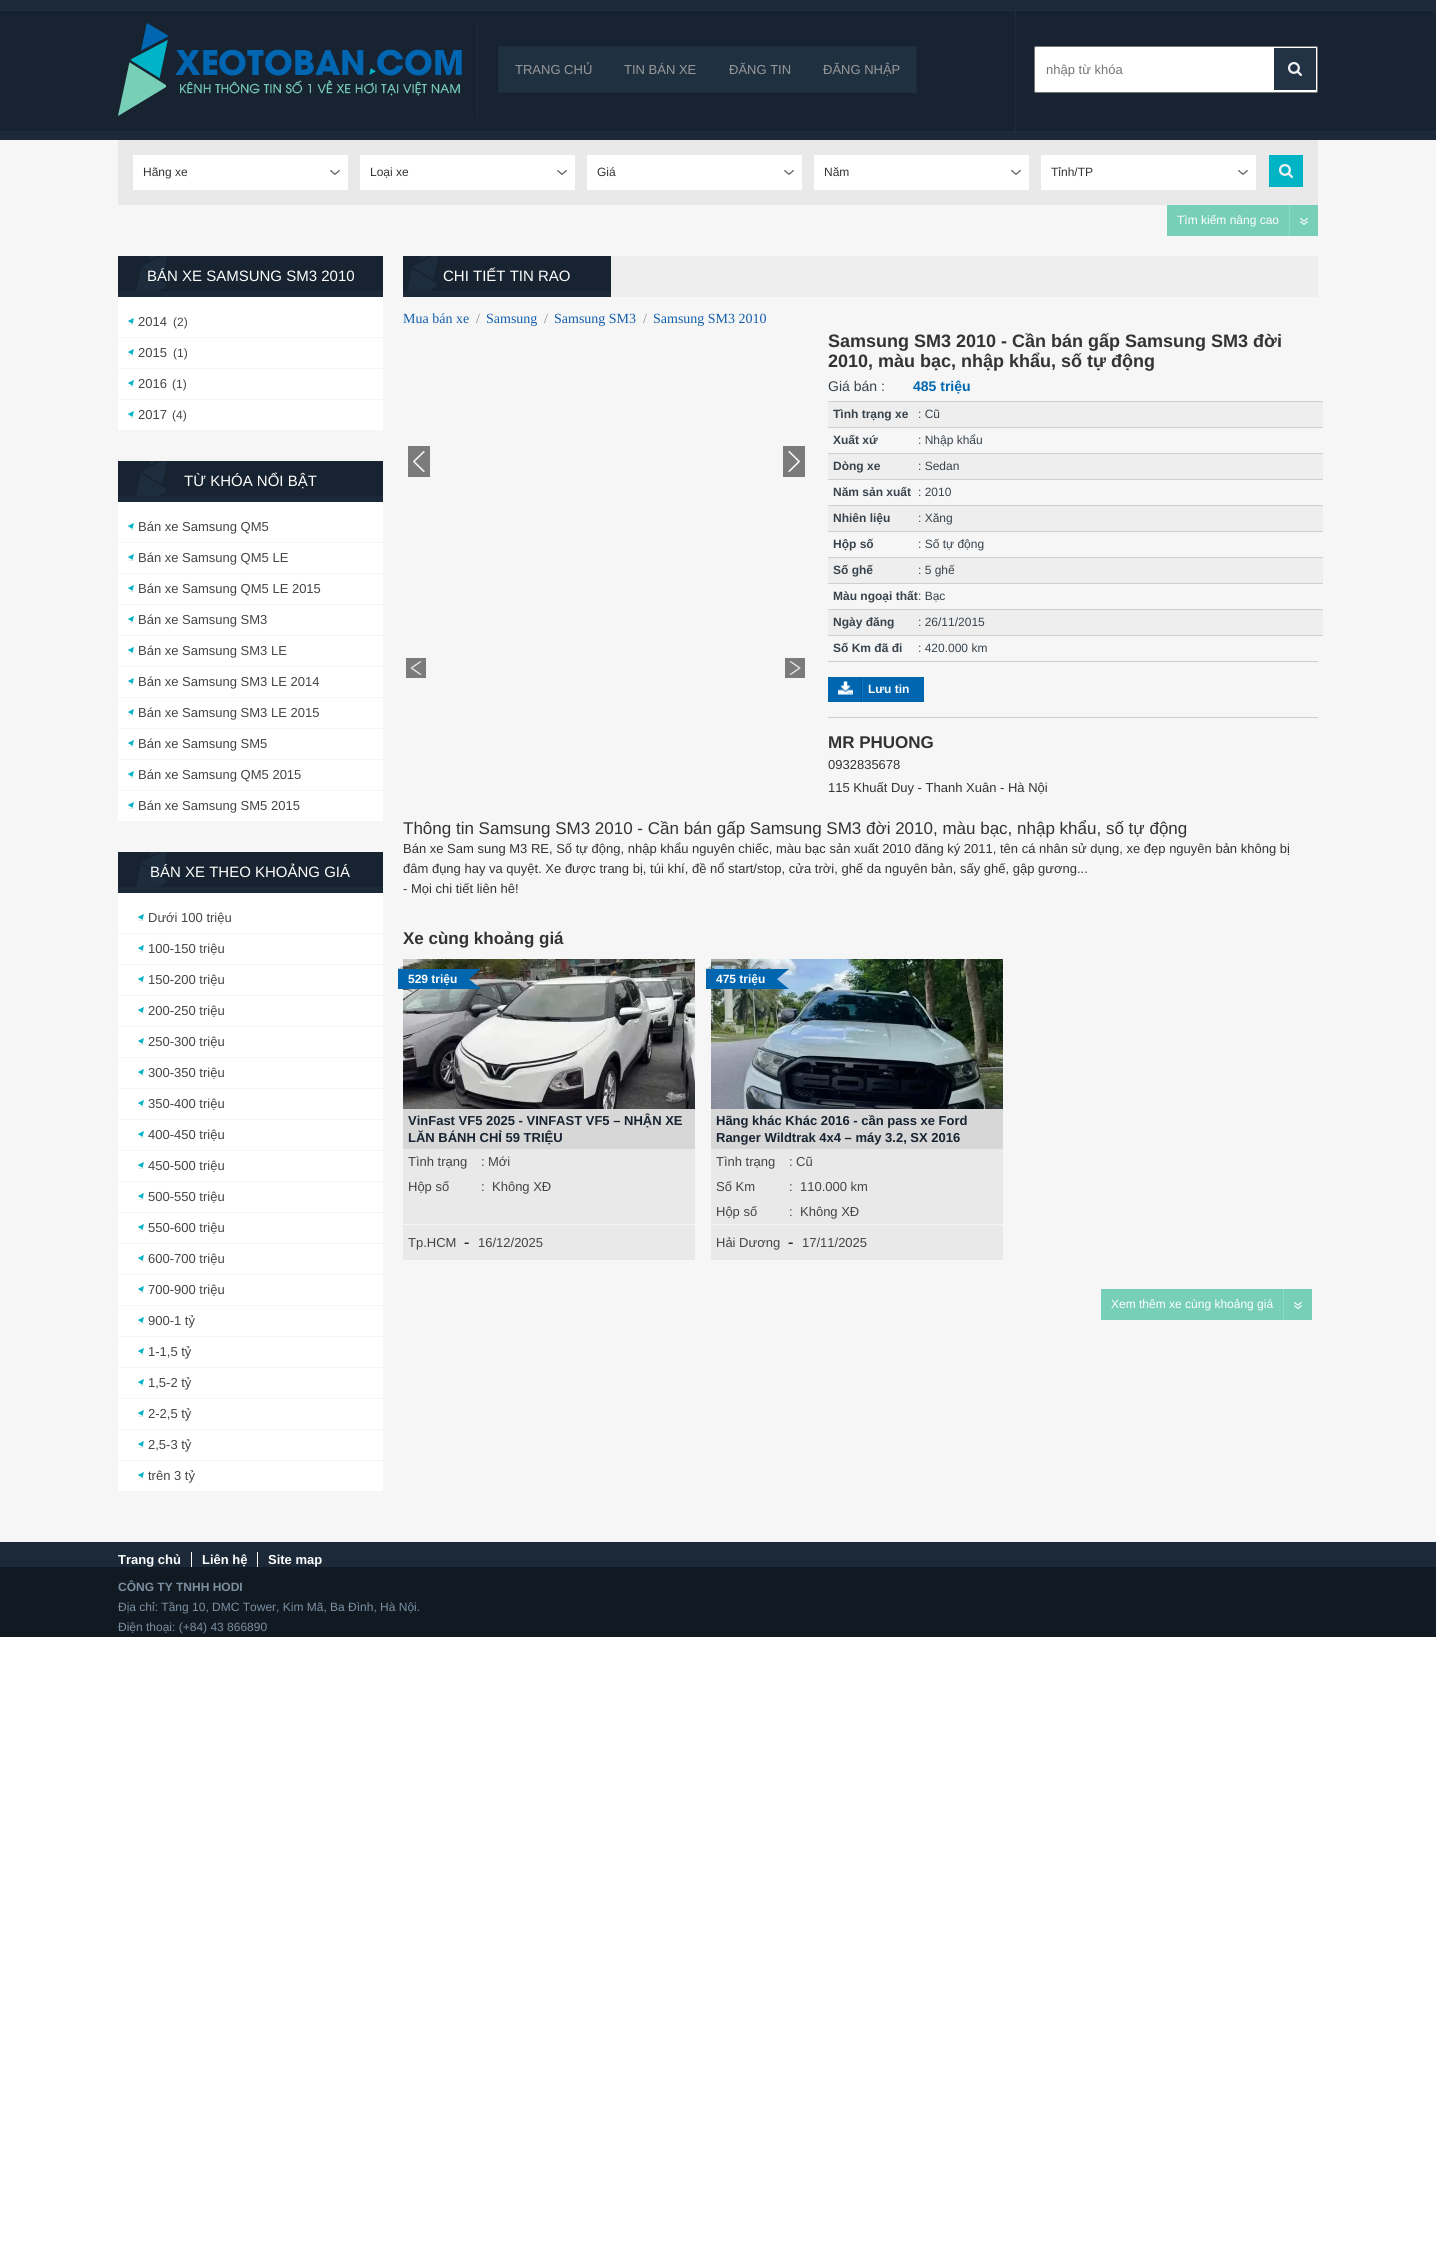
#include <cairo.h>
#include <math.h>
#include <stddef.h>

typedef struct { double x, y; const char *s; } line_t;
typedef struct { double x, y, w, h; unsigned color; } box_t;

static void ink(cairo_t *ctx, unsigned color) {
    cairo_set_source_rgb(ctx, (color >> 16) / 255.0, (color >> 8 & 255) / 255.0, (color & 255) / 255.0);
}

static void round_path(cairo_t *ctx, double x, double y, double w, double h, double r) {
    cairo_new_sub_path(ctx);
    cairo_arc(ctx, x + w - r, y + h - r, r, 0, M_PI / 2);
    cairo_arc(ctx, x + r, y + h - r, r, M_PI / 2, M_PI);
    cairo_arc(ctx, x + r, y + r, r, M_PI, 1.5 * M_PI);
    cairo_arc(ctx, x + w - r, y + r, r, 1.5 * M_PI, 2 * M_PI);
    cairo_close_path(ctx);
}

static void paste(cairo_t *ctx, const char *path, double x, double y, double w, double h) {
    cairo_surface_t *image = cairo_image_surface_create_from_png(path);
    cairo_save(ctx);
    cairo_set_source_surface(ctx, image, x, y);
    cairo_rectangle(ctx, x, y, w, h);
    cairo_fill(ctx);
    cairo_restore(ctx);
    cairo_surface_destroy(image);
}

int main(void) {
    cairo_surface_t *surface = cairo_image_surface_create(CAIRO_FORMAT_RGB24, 1436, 2255);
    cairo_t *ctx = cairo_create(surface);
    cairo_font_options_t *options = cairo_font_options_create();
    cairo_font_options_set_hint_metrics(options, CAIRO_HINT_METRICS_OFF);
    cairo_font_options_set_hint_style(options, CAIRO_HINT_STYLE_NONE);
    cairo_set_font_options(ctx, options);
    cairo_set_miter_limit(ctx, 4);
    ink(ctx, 0xFFFFFF);
    cairo_paint(ctx);
    {
        static const box_t items[] = {
            {0, 0, 1436, 140, 0x1B2938},
            {0, 11, 1436, 120, 0x172330},
            {0, 10, 1436, 1, 0x1E2D3E},
            {0, 131, 1436, 1, 0x1E2D3E},
            {477, 23, 1, 93, 0x1E2D3E},
        };
        for (size_t i = 0; i < sizeof items / sizeof *items; i++) {
            ink(ctx, items[i].color);
            cairo_rectangle(ctx, items[i].x, items[i].y, items[i].w, items[i].h);
            cairo_fill(ctx);
        }
    }
    paste(ctx, "media/1.png", 118, 23, 344, 93);
    ink(ctx, 0x1F3041);
    cairo_rectangle(ctx, 498.5, 46.5, 418, 46);
    cairo_fill_preserve(ctx);
    ink(ctx, 0x1E2D3E);
    cairo_set_line_width(ctx, 1);
    cairo_stroke(ctx);
    cairo_select_font_face(ctx, "Liberation Sans", CAIRO_FONT_SLANT_NORMAL, CAIRO_FONT_WEIGHT_NORMAL);
    cairo_set_font_size(ctx, 13);
    ink(ctx, 0x999999);
    {
        static const line_t items[] = {
            {515, 74, "TRANG CHỦ"},
            {624, 74, "TIN BÁN XE"},
            {729, 74, "ĐĂNG TIN"},
            {823, 74, "ĐĂNG NHẬP"},
        };
        for (size_t i = 0; i < sizeof items / sizeof *items; i++) {
            cairo_move_to(ctx, items[i].x, items[i].y);
            cairo_show_text(ctx, items[i].s);
        }
    }
    ink(ctx, 0x1E2D3E);
    cairo_rectangle(ctx, 1015, 11, 1, 120);
    cairo_fill(ctx);
    ink(ctx, 0xFFFFFF);
    round_path(ctx, 1034.5, 46.5, 283, 46, 1.5);
    cairo_fill_preserve(ctx);
    ink(ctx, 0x767676);
    cairo_stroke(ctx);
    ink(ctx, 0x757575);
    cairo_move_to(ctx, 1046, 74);
    cairo_show_text(ctx, "nhập từ khóa");
    ink(ctx, 0x223345);
    cairo_rectangle(ctx, 1274, 48, 42, 42);
    cairo_fill(ctx);
    paste(ctx, "media/2.png", 1288, 62, 14, 14);
    {
        static const box_t items[] = {
            {0, 140, 1436, 1402, 0xF6F6F6},
            {118, 140, 1200, 65, 0xE9E9E9},
            {133, 155, 215, 35, 0xFFFFFF},
        };
        for (size_t i = 0; i < sizeof items / sizeof *items; i++) {
            ink(ctx, items[i].color);
            cairo_rectangle(ctx, items[i].x, items[i].y, items[i].w, items[i].h);
            cairo_fill(ctx);
        }
    }
    cairo_set_font_size(ctx, 12);
    ink(ctx, 0x333333);
    cairo_move_to(ctx, 143, 176);
    cairo_show_text(ctx, "Hãng xe");
    paste(ctx, "media/3.png", 330, 170, 10, 5);
    ink(ctx, 0xFFFFFF);
    cairo_rectangle(ctx, 360, 155, 215, 35);
    cairo_fill(ctx);
    ink(ctx, 0x333333);
    cairo_move_to(ctx, 370, 176);
    cairo_show_text(ctx, "Loại xe");
    paste(ctx, "media/3.png", 557, 170, 10, 5);
    ink(ctx, 0xFFFFFF);
    cairo_rectangle(ctx, 587, 155, 215, 35);
    cairo_fill(ctx);
    ink(ctx, 0x333333);
    cairo_move_to(ctx, 597, 176);
    cairo_show_text(ctx, "Giá");
    paste(ctx, "media/3.png", 784, 170, 10, 5);
    ink(ctx, 0xFFFFFF);
    cairo_rectangle(ctx, 814, 155, 215, 35);
    cairo_fill(ctx);
    ink(ctx, 0x333333);
    cairo_move_to(ctx, 824, 176);
    cairo_show_text(ctx, "Năm");
    paste(ctx, "media/3.png", 1011, 170, 10, 5);
    ink(ctx, 0xFFFFFF);
    cairo_rectangle(ctx, 1041, 155, 215, 35);
    cairo_fill(ctx);
    ink(ctx, 0x333333);
    cairo_move_to(ctx, 1051, 176);
    cairo_show_text(ctx, "Tỉnh/TP");
    paste(ctx, "media/3.png", 1238, 170, 10, 5);
    ink(ctx, 0x00B3C5);
    cairo_rectangle(ctx, 1269, 155, 34, 32);
    cairo_fill(ctx);
    paste(ctx, "media/4.png", 1279, 164, 14, 14);
    ink(ctx, 0x77CFB8);
    cairo_rectangle(ctx, 1167, 205, 151, 31);
    cairo_fill(ctx);
    ink(ctx, 0x83E0C8);
    cairo_rectangle(ctx, 1289, 205, 1, 31);
    cairo_fill(ctx);
    ink(ctx, 0xFEFEFE);
    cairo_move_to(ctx, 1177, 224);
    cairo_show_text(ctx, "Tìm kiếm nâng cao");
    paste(ctx, "media/5.png", 1300, 218, 8, 7);
    {
        static const box_t items[] = {
            {118, 297, 265, 133, 0xFFFFFF},
            {118, 291, 265, 6, 0x1B2938},
            {118, 256, 265, 35, 0x172330},
        };
        for (size_t i = 0; i < sizeof items / sizeof *items; i++) {
            ink(ctx, items[i].color);
            cairo_rectangle(ctx, items[i].x, items[i].y, items[i].w, items[i].h);
            cairo_fill(ctx);
        }
    }
    paste(ctx, "media/6.png", 136, 256, 31, 35);
    cairo_set_font_size(ctx, 15);
    ink(ctx, 0xFEFEFE);
    cairo_move_to(ctx, 147, 281);
    cairo_show_text(ctx, "BÁN XE SAMSUNG SM3 2010");
    ink(ctx, 0xF5F5F5);
    cairo_rectangle(ctx, 118, 337, 265, 1);
    cairo_fill(ctx);
    paste(ctx, "media/7.png", 128, 318, 6, 7);
    cairo_set_font_size(ctx, 13);
    ink(ctx, 0x444444);
    cairo_move_to(ctx, 138, 326);
    cairo_show_text(ctx, "2014");
    cairo_set_font_size(ctx, 12);
    cairo_move_to(ctx, 173, 326);
    cairo_show_text(ctx, "(2)");
    ink(ctx, 0xF5F5F5);
    cairo_rectangle(ctx, 118, 368, 265, 1);
    cairo_fill(ctx);
    paste(ctx, "media/7.png", 128, 349, 6, 7);
    cairo_set_font_size(ctx, 13);
    ink(ctx, 0x444444);
    cairo_move_to(ctx, 138, 357);
    cairo_show_text(ctx, "2015");
    cairo_set_font_size(ctx, 12);
    cairo_move_to(ctx, 173, 357);
    cairo_show_text(ctx, "(1)");
    ink(ctx, 0xF5F5F5);
    cairo_rectangle(ctx, 118, 399, 265, 1);
    cairo_fill(ctx);
    paste(ctx, "media/7.png", 128, 380, 6, 7);
    cairo_set_font_size(ctx, 13);
    ink(ctx, 0x444444);
    cairo_move_to(ctx, 138, 388);
    cairo_show_text(ctx, "2016");
    cairo_set_font_size(ctx, 12);
    cairo_move_to(ctx, 172, 388);
    cairo_show_text(ctx, "(1)");
    paste(ctx, "media/7.png", 128, 411, 6, 7);
    cairo_set_font_size(ctx, 13);
    cairo_move_to(ctx, 138, 419);
    cairo_show_text(ctx, "2017");
    cairo_set_font_size(ctx, 12);
    cairo_move_to(ctx, 172, 419);
    cairo_show_text(ctx, "(4)");
    {
        static const box_t items[] = {
            {118, 502, 265, 319, 0xFFFFFF},
            {118, 496, 265, 6, 0x1B2938},
            {118, 461, 265, 35, 0x172330},
        };
        for (size_t i = 0; i < sizeof items / sizeof *items; i++) {
            ink(ctx, items[i].color);
            cairo_rectangle(ctx, items[i].x, items[i].y, items[i].w, items[i].h);
            cairo_fill(ctx);
        }
    }
    paste(ctx, "media/6.png", 136, 461, 31, 35);
    cairo_set_font_size(ctx, 15);
    ink(ctx, 0xFEFEFE);
    cairo_move_to(ctx, 184, 486);
    cairo_show_text(ctx, "TỪ KHÓA NỔI BẬT");
    ink(ctx, 0xF5F5F5);
    cairo_rectangle(ctx, 118, 542, 265, 1);
    cairo_fill(ctx);
    paste(ctx, "media/7.png", 128, 523, 6, 7);
    cairo_set_font_size(ctx, 13);
    ink(ctx, 0x444444);
    cairo_move_to(ctx, 138, 531);
    cairo_show_text(ctx, "Bán xe Samsung QM5");
    ink(ctx, 0xF5F5F5);
    cairo_rectangle(ctx, 118, 573, 265, 1);
    cairo_fill(ctx);
    paste(ctx, "media/7.png", 128, 554, 6, 7);
    ink(ctx, 0x444444);
    cairo_move_to(ctx, 138, 562);
    cairo_show_text(ctx, "Bán xe Samsung QM5 LE");
    ink(ctx, 0xF5F5F5);
    cairo_rectangle(ctx, 118, 604, 265, 1);
    cairo_fill(ctx);
    paste(ctx, "media/7.png", 128, 585, 6, 7);
    ink(ctx, 0x444444);
    cairo_move_to(ctx, 138, 593);
    cairo_show_text(ctx, "Bán xe Samsung QM5 LE 2015");
    ink(ctx, 0xF5F5F5);
    cairo_rectangle(ctx, 118, 635, 265, 1);
    cairo_fill(ctx);
    paste(ctx, "media/7.png", 128, 616, 6, 7);
    ink(ctx, 0x444444);
    cairo_move_to(ctx, 138, 624);
    cairo_show_text(ctx, "Bán xe Samsung SM3");
    ink(ctx, 0xF5F5F5);
    cairo_rectangle(ctx, 118, 666, 265, 1);
    cairo_fill(ctx);
    paste(ctx, "media/7.png", 128, 647, 6, 7);
    ink(ctx, 0x444444);
    cairo_move_to(ctx, 138, 655);
    cairo_show_text(ctx, "Bán xe Samsung SM3 LE");
    ink(ctx, 0xF5F5F5);
    cairo_rectangle(ctx, 118, 697, 265, 1);
    cairo_fill(ctx);
    paste(ctx, "media/7.png", 128, 678, 6, 7);
    ink(ctx, 0x444444);
    cairo_move_to(ctx, 138, 686);
    cairo_show_text(ctx, "Bán xe Samsung SM3 LE 2014");
    ink(ctx, 0xF5F5F5);
    cairo_rectangle(ctx, 118, 728, 265, 1);
    cairo_fill(ctx);
    paste(ctx, "media/7.png", 128, 709, 6, 7);
    ink(ctx, 0x444444);
    cairo_move_to(ctx, 138, 717);
    cairo_show_text(ctx, "Bán xe Samsung SM3 LE 2015");
    ink(ctx, 0xF5F5F5);
    cairo_rectangle(ctx, 118, 759, 265, 1);
    cairo_fill(ctx);
    paste(ctx, "media/7.png", 128, 740, 6, 7);
    ink(ctx, 0x444444);
    cairo_move_to(ctx, 138, 748);
    cairo_show_text(ctx, "Bán xe Samsung SM5");
    ink(ctx, 0xF5F5F5);
    cairo_rectangle(ctx, 118, 790, 265, 1);
    cairo_fill(ctx);
    paste(ctx, "media/7.png", 128, 771, 6, 7);
    ink(ctx, 0x444444);
    cairo_move_to(ctx, 138, 779);
    cairo_show_text(ctx, "Bán xe Samsung QM5 2015");
    paste(ctx, "media/7.png", 128, 802, 6, 7);
    cairo_move_to(ctx, 138, 810);
    cairo_show_text(ctx, "Bán xe Samsung SM5 2015");
    {
        static const box_t items[] = {
            {118, 893, 265, 598, 0xFFFFFF},
            {118, 887, 265, 6, 0x1B2938},
            {118, 852, 265, 35, 0x172330},
        };
        for (size_t i = 0; i < sizeof items / sizeof *items; i++) {
            ink(ctx, items[i].color);
            cairo_rectangle(ctx, items[i].x, items[i].y, items[i].w, items[i].h);
            cairo_fill(ctx);
        }
    }
    paste(ctx, "media/6.png", 136, 852, 31, 35);
    cairo_set_font_size(ctx, 15);
    ink(ctx, 0xFEFEFE);
    cairo_move_to(ctx, 150, 877);
    cairo_show_text(ctx, "BÁN XE THEO KHOẢNG GIÁ");
    ink(ctx, 0xF5F5F5);
    cairo_rectangle(ctx, 118, 933, 265, 1);
    cairo_fill(ctx);
    paste(ctx, "media/7.png", 138, 914, 6, 7);
    cairo_set_font_size(ctx, 13);
    ink(ctx, 0x444444);
    cairo_move_to(ctx, 148, 922);
    cairo_show_text(ctx, "Dưới 100 triệu");
    ink(ctx, 0xF5F5F5);
    cairo_rectangle(ctx, 118, 964, 265, 1);
    cairo_fill(ctx);
    paste(ctx, "media/7.png", 138, 945, 6, 7);
    ink(ctx, 0x444444);
    cairo_move_to(ctx, 148, 953);
    cairo_show_text(ctx, "100-150 triệu");
    ink(ctx, 0xF5F5F5);
    cairo_rectangle(ctx, 118, 995, 265, 1);
    cairo_fill(ctx);
    paste(ctx, "media/7.png", 138, 976, 6, 7);
    ink(ctx, 0x444444);
    cairo_move_to(ctx, 148, 984);
    cairo_show_text(ctx, "150-200 triệu");
    ink(ctx, 0xF5F5F5);
    cairo_rectangle(ctx, 118, 1026, 265, 1);
    cairo_fill(ctx);
    paste(ctx, "media/7.png", 138, 1007, 6, 7);
    ink(ctx, 0x444444);
    cairo_move_to(ctx, 148, 1015);
    cairo_show_text(ctx, "200-250 triệu");
    ink(ctx, 0xF5F5F5);
    cairo_rectangle(ctx, 118, 1057, 265, 1);
    cairo_fill(ctx);
    paste(ctx, "media/7.png", 138, 1038, 6, 7);
    ink(ctx, 0x444444);
    cairo_move_to(ctx, 148, 1046);
    cairo_show_text(ctx, "250-300 triệu");
    ink(ctx, 0xF5F5F5);
    cairo_rectangle(ctx, 118, 1088, 265, 1);
    cairo_fill(ctx);
    paste(ctx, "media/7.png", 138, 1069, 6, 7);
    ink(ctx, 0x444444);
    cairo_move_to(ctx, 148, 1077);
    cairo_show_text(ctx, "300-350 triệu");
    ink(ctx, 0xF5F5F5);
    cairo_rectangle(ctx, 118, 1119, 265, 1);
    cairo_fill(ctx);
    paste(ctx, "media/7.png", 138, 1100, 6, 7);
    ink(ctx, 0x444444);
    cairo_move_to(ctx, 148, 1108);
    cairo_show_text(ctx, "350-400 triệu");
    ink(ctx, 0xF5F5F5);
    cairo_rectangle(ctx, 118, 1150, 265, 1);
    cairo_fill(ctx);
    paste(ctx, "media/7.png", 138, 1131, 6, 7);
    ink(ctx, 0x444444);
    cairo_move_to(ctx, 148, 1139);
    cairo_show_text(ctx, "400-450 triệu");
    ink(ctx, 0xF5F5F5);
    cairo_rectangle(ctx, 118, 1181, 265, 1);
    cairo_fill(ctx);
    paste(ctx, "media/7.png", 138, 1162, 6, 7);
    ink(ctx, 0x444444);
    cairo_move_to(ctx, 148, 1170);
    cairo_show_text(ctx, "450-500 triệu");
    ink(ctx, 0xF5F5F5);
    cairo_rectangle(ctx, 118, 1212, 265, 1);
    cairo_fill(ctx);
    paste(ctx, "media/7.png", 138, 1193, 6, 7);
    ink(ctx, 0x444444);
    cairo_move_to(ctx, 148, 1201);
    cairo_show_text(ctx, "500-550 triệu");
    ink(ctx, 0xF5F5F5);
    cairo_rectangle(ctx, 118, 1243, 265, 1);
    cairo_fill(ctx);
    paste(ctx, "media/7.png", 138, 1224, 6, 7);
    ink(ctx, 0x444444);
    cairo_move_to(ctx, 148, 1232);
    cairo_show_text(ctx, "550-600 triệu");
    ink(ctx, 0xF5F5F5);
    cairo_rectangle(ctx, 118, 1274, 265, 1);
    cairo_fill(ctx);
    paste(ctx, "media/7.png", 138, 1255, 6, 7);
    ink(ctx, 0x444444);
    cairo_move_to(ctx, 148, 1263);
    cairo_show_text(ctx, "600-700 triệu");
    ink(ctx, 0xF5F5F5);
    cairo_rectangle(ctx, 118, 1305, 265, 1);
    cairo_fill(ctx);
    paste(ctx, "media/7.png", 138, 1286, 6, 7);
    ink(ctx, 0x444444);
    cairo_move_to(ctx, 148, 1294);
    cairo_show_text(ctx, "700-900 triệu");
    ink(ctx, 0xF5F5F5);
    cairo_rectangle(ctx, 118, 1336, 265, 1);
    cairo_fill(ctx);
    paste(ctx, "media/7.png", 138, 1317, 6, 7);
    ink(ctx, 0x444444);
    cairo_move_to(ctx, 148, 1325);
    cairo_show_text(ctx, "900-1 tỷ");
    ink(ctx, 0xF5F5F5);
    cairo_rectangle(ctx, 118, 1367, 265, 1);
    cairo_fill(ctx);
    paste(ctx, "media/7.png", 138, 1348, 6, 7);
    ink(ctx, 0x444444);
    cairo_move_to(ctx, 148, 1356);
    cairo_show_text(ctx, "1-1,5 tỷ");
    ink(ctx, 0xF5F5F5);
    cairo_rectangle(ctx, 118, 1398, 265, 1);
    cairo_fill(ctx);
    paste(ctx, "media/7.png", 138, 1379, 6, 7);
    ink(ctx, 0x444444);
    cairo_move_to(ctx, 148, 1387);
    cairo_show_text(ctx, "1,5-2 tỷ");
    ink(ctx, 0xF5F5F5);
    cairo_rectangle(ctx, 118, 1429, 265, 1);
    cairo_fill(ctx);
    paste(ctx, "media/7.png", 138, 1410, 6, 7);
    ink(ctx, 0x444444);
    cairo_move_to(ctx, 148, 1418);
    cairo_show_text(ctx, "2-2,5 tỷ");
    ink(ctx, 0xF5F5F5);
    cairo_rectangle(ctx, 118, 1460, 265, 1);
    cairo_fill(ctx);
    paste(ctx, "media/7.png", 138, 1441, 6, 7);
    ink(ctx, 0x444444);
    cairo_move_to(ctx, 148, 1449);
    cairo_show_text(ctx, "2,5-3 tỷ");
    paste(ctx, "media/7.png", 138, 1472, 6, 7);
    cairo_move_to(ctx, 148, 1480);
    cairo_show_text(ctx, "trên 3 tỷ");
    {
        static const box_t items[] = {
            {611, 256, 707, 41, 0xEEEEEE},
            {403, 291, 208, 6, 0x1B2938},
            {403, 256, 208, 35, 0x172330},
        };
        for (size_t i = 0; i < sizeof items / sizeof *items; i++) {
            ink(ctx, items[i].color);
            cairo_rectangle(ctx, items[i].x, items[i].y, items[i].w, items[i].h);
            cairo_fill(ctx);
        }
    }
    paste(ctx, "media/6.png", 407, 256, 31, 35);
    cairo_set_font_size(ctx, 15);
    ink(ctx, 0xFEFEFE);
    cairo_move_to(ctx, 443, 281);
    cairo_show_text(ctx, "CHI TIẾT TIN RAO");
    cairo_select_font_face(ctx, "Liberation Serif", CAIRO_FONT_SLANT_NORMAL, CAIRO_FONT_WEIGHT_NORMAL);
    cairo_set_font_size(ctx, 14);
    ink(ctx, 0x135EAC);
    cairo_move_to(ctx, 403, 323);
    cairo_show_text(ctx, "Mua bán xe");
    ink(ctx, 0x888888);
    cairo_move_to(ctx, 476, 323);
    cairo_show_text(ctx, "/");
    ink(ctx, 0x135EAC);
    cairo_move_to(ctx, 486, 323);
    cairo_show_text(ctx, "Samsung");
    ink(ctx, 0x888888);
    cairo_move_to(ctx, 544, 323);
    cairo_show_text(ctx, "/");
    ink(ctx, 0x135EAC);
    cairo_move_to(ctx, 554, 323);
    cairo_show_text(ctx, "Samsung SM3");
    ink(ctx, 0x888888);
    cairo_move_to(ctx, 643, 323);
    cairo_show_text(ctx, "/");
    ink(ctx, 0x135EAC);
    cairo_move_to(ctx, 653, 323);
    cairo_show_text(ctx, "Samsung SM3 2010");
    paste(ctx, "media/8.png", 408, 446, 22, 31);
    paste(ctx, "media/9.png", 783, 446, 22, 31);
    paste(ctx, "media/10.png", 406, 658, 20, 20);
    paste(ctx, "media/11.png", 785, 658, 20, 20);
    cairo_select_font_face(ctx, "Liberation Sans", CAIRO_FONT_SLANT_NORMAL, CAIRO_FONT_WEIGHT_BOLD);
    cairo_set_font_size(ctx, 18);
    ink(ctx, 0x333333);
    cairo_move_to(ctx, 828, 347);
    cairo_show_text(ctx, "Samsung SM3 2010 - Cần bán gấp Samsung SM3 đời");
    cairo_move_to(ctx, 828, 367);
    cairo_show_text(ctx, "2010, màu bạc, nhập khẩu, số tự động");
    cairo_select_font_face(ctx, "Liberation Sans", CAIRO_FONT_SLANT_NORMAL, CAIRO_FONT_WEIGHT_NORMAL);
    cairo_set_font_size(ctx, 14);
    ink(ctx, 0x39434C);
    cairo_move_to(ctx, 828, 391);
    cairo_show_text(ctx, "Giá bán :");
    cairo_select_font_face(ctx, "Liberation Sans", CAIRO_FONT_SLANT_NORMAL, CAIRO_FONT_WEIGHT_BOLD);
    ink(ctx, 0x0066B0);
    cairo_move_to(ctx, 913, 391);
    cairo_show_text(ctx, "485 triệu");
    {
        static const box_t items[] = {
            {828, 402, 495, 25, 0xEEEEEE},
            {828, 401, 495, 1, 0xCCCFD0},
            {828, 427, 495, 1, 0xCCCFD0},
        };
        for (size_t i = 0; i < sizeof items / sizeof *items; i++) {
            ink(ctx, items[i].color);
            cairo_rectangle(ctx, items[i].x, items[i].y, items[i].w, items[i].h);
            cairo_fill(ctx);
        }
    }
    cairo_set_font_size(ctx, 12);
    ink(ctx, 0x39434C);
    cairo_move_to(ctx, 833, 418);
    cairo_show_text(ctx, "Tình trạng xe");
    cairo_select_font_face(ctx, "Liberation Sans", CAIRO_FONT_SLANT_NORMAL, CAIRO_FONT_WEIGHT_NORMAL);
    cairo_move_to(ctx, 918, 418);
    cairo_show_text(ctx, ": Cũ");
    cairo_select_font_face(ctx, "Liberation Sans", CAIRO_FONT_SLANT_NORMAL, CAIRO_FONT_WEIGHT_BOLD);
    cairo_move_to(ctx, 833, 444);
    cairo_show_text(ctx, "Xuất xứ");
    cairo_select_font_face(ctx, "Liberation Sans", CAIRO_FONT_SLANT_NORMAL, CAIRO_FONT_WEIGHT_NORMAL);
    cairo_move_to(ctx, 918, 444);
    cairo_show_text(ctx, ": Nhập khẩu");
    {
        static const box_t items[] = {
            {828, 454, 495, 25, 0xEEEEEE},
            {828, 453, 495, 1, 0xCCCFD0},
            {828, 479, 495, 1, 0xCCCFD0},
        };
        for (size_t i = 0; i < sizeof items / sizeof *items; i++) {
            ink(ctx, items[i].color);
            cairo_rectangle(ctx, items[i].x, items[i].y, items[i].w, items[i].h);
            cairo_fill(ctx);
        }
    }
    cairo_select_font_face(ctx, "Liberation Sans", CAIRO_FONT_SLANT_NORMAL, CAIRO_FONT_WEIGHT_BOLD);
    ink(ctx, 0x39434C);
    cairo_move_to(ctx, 833, 470);
    cairo_show_text(ctx, "Dòng xe");
    cairo_select_font_face(ctx, "Liberation Sans", CAIRO_FONT_SLANT_NORMAL, CAIRO_FONT_WEIGHT_NORMAL);
    cairo_move_to(ctx, 918, 470);
    cairo_show_text(ctx, ": Sedan");
    cairo_select_font_face(ctx, "Liberation Sans", CAIRO_FONT_SLANT_NORMAL, CAIRO_FONT_WEIGHT_BOLD);
    cairo_move_to(ctx, 833, 496);
    cairo_show_text(ctx, "Năm sản xuất");
    cairo_select_font_face(ctx, "Liberation Sans", CAIRO_FONT_SLANT_NORMAL, CAIRO_FONT_WEIGHT_NORMAL);
    cairo_move_to(ctx, 918, 496);
    cairo_show_text(ctx, ": 2010");
    {
        static const box_t items[] = {
            {828, 506, 495, 25, 0xEEEEEE},
            {828, 505, 495, 1, 0xCCCFD0},
            {828, 531, 495, 1, 0xCCCFD0},
        };
        for (size_t i = 0; i < sizeof items / sizeof *items; i++) {
            ink(ctx, items[i].color);
            cairo_rectangle(ctx, items[i].x, items[i].y, items[i].w, items[i].h);
            cairo_fill(ctx);
        }
    }
    cairo_select_font_face(ctx, "Liberation Sans", CAIRO_FONT_SLANT_NORMAL, CAIRO_FONT_WEIGHT_BOLD);
    ink(ctx, 0x39434C);
    cairo_move_to(ctx, 833, 522);
    cairo_show_text(ctx, "Nhiên liệu");
    cairo_select_font_face(ctx, "Liberation Sans", CAIRO_FONT_SLANT_NORMAL, CAIRO_FONT_WEIGHT_NORMAL);
    cairo_move_to(ctx, 918, 522);
    cairo_show_text(ctx, ": Xăng");
    cairo_select_font_face(ctx, "Liberation Sans", CAIRO_FONT_SLANT_NORMAL, CAIRO_FONT_WEIGHT_BOLD);
    cairo_move_to(ctx, 833, 548);
    cairo_show_text(ctx, "Hộp số");
    cairo_select_font_face(ctx, "Liberation Sans", CAIRO_FONT_SLANT_NORMAL, CAIRO_FONT_WEIGHT_NORMAL);
    cairo_move_to(ctx, 918, 548);
    cairo_show_text(ctx, ": Số tự động");
    {
        static const box_t items[] = {
            {828, 558, 495, 25, 0xEEEEEE},
            {828, 557, 495, 1, 0xCCCFD0},
            {828, 583, 495, 1, 0xCCCFD0},
        };
        for (size_t i = 0; i < sizeof items / sizeof *items; i++) {
            ink(ctx, items[i].color);
            cairo_rectangle(ctx, items[i].x, items[i].y, items[i].w, items[i].h);
            cairo_fill(ctx);
        }
    }
    cairo_select_font_face(ctx, "Liberation Sans", CAIRO_FONT_SLANT_NORMAL, CAIRO_FONT_WEIGHT_BOLD);
    ink(ctx, 0x39434C);
    cairo_move_to(ctx, 833, 574);
    cairo_show_text(ctx, "Số ghế");
    cairo_select_font_face(ctx, "Liberation Sans", CAIRO_FONT_SLANT_NORMAL, CAIRO_FONT_WEIGHT_NORMAL);
    cairo_move_to(ctx, 918, 574);
    cairo_show_text(ctx, ": 5 ghế");
    cairo_select_font_face(ctx, "Liberation Sans", CAIRO_FONT_SLANT_NORMAL, CAIRO_FONT_WEIGHT_BOLD);
    cairo_move_to(ctx, 833, 600);
    cairo_show_text(ctx, "Màu ngoại thất");
    cairo_select_font_face(ctx, "Liberation Sans", CAIRO_FONT_SLANT_NORMAL, CAIRO_FONT_WEIGHT_NORMAL);
    cairo_move_to(ctx, 918, 600);
    cairo_show_text(ctx, ": Bạc");
    {
        static const box_t items[] = {
            {828, 610, 495, 25, 0xEEEEEE},
            {828, 609, 495, 1, 0xCCCFD0},
            {828, 635, 495, 1, 0xCCCFD0},
        };
        for (size_t i = 0; i < sizeof items / sizeof *items; i++) {
            ink(ctx, items[i].color);
            cairo_rectangle(ctx, items[i].x, items[i].y, items[i].w, items[i].h);
            cairo_fill(ctx);
        }
    }
    cairo_select_font_face(ctx, "Liberation Sans", CAIRO_FONT_SLANT_NORMAL, CAIRO_FONT_WEIGHT_BOLD);
    ink(ctx, 0x39434C);
    cairo_move_to(ctx, 833, 626);
    cairo_show_text(ctx, "Ngày đăng");
    cairo_select_font_face(ctx, "Liberation Sans", CAIRO_FONT_SLANT_NORMAL, CAIRO_FONT_WEIGHT_NORMAL);
    cairo_move_to(ctx, 918, 626);
    cairo_show_text(ctx, ": 26/11/2015");
    cairo_select_font_face(ctx, "Liberation Sans", CAIRO_FONT_SLANT_NORMAL, CAIRO_FONT_WEIGHT_BOLD);
    cairo_move_to(ctx, 833, 652);
    cairo_show_text(ctx, "Số Km đã đi");
    cairo_select_font_face(ctx, "Liberation Sans", CAIRO_FONT_SLANT_NORMAL, CAIRO_FONT_WEIGHT_NORMAL);
    cairo_move_to(ctx, 918, 652);
    cairo_show_text(ctx, ": 420.000 km");
    {
        static const box_t items[] = {
            {828, 661, 490, 1, 0xCCCFD0},
            {828, 717, 490, 1, 0xCCCFD0},
            {828, 677, 96, 25, 0x0066B0},
        };
        for (size_t i = 0; i < sizeof items / sizeof *items; i++) {
            ink(ctx, items[i].color);
            cairo_rectangle(ctx, items[i].x, items[i].y, items[i].w, items[i].h);
            cairo_fill(ctx);
        }
    }
    paste(ctx, "media/12.png", 838, 677, 25, 25);
    cairo_select_font_face(ctx, "Liberation Sans", CAIRO_FONT_SLANT_NORMAL, CAIRO_FONT_WEIGHT_BOLD);
    ink(ctx, 0xFEFEFE);
    cairo_move_to(ctx, 868, 693);
    cairo_show_text(ctx, "Lưu tin");
    cairo_set_font_size(ctx, 17);
    ink(ctx, 0x333333);
    cairo_move_to(ctx, 828, 748);
    cairo_show_text(ctx, "MR PHUONG");
    cairo_select_font_face(ctx, "Liberation Sans", CAIRO_FONT_SLANT_NORMAL, CAIRO_FONT_WEIGHT_NORMAL);
    cairo_set_font_size(ctx, 13);
    cairo_move_to(ctx, 828, 769);
    cairo_show_text(ctx, "0932835678");
    cairo_move_to(ctx, 828, 792);
    cairo_show_text(ctx, "115 Khuất Duy - Thanh Xuân - Hà Nội");
    cairo_set_font_size(ctx, 17);
    cairo_move_to(ctx, 403, 834);
    cairo_show_text(ctx, "Thông tin Samsung SM3 2010 - Cần bán gấp Samsung SM3 đời 2010, màu bạc, nhập khẩu, số tự động");
    cairo_set_font_size(ctx, 13);
    {
        static const line_t items[] = {
            {403, 853, "Bán xe Sam sung M3 RE, Số tự động, nhập khẩu nguyên chiếc, màu bạc sản xuất 2010 đăng ký 2011, tên cá nhân sử dụng, xe đẹp nguyên bản không bị"},
            {403, 873, "đâm đụng hay va quyệt. Xe được trang bị, túi khí, đề nổ start/stop, cửa trời, ghế da nguyên bản, sấy ghế, gập gương..."},
            {403, 893, "- Mọi chi tiết liên hê!"},
        };
        for (size_t i = 0; i < sizeof items / sizeof *items; i++) {
            cairo_move_to(ctx, items[i].x, items[i].y);
            cairo_show_text(ctx, items[i].s);
        }
    }
    cairo_select_font_face(ctx, "Liberation Sans", CAIRO_FONT_SLANT_NORMAL, CAIRO_FONT_WEIGHT_BOLD);
    cairo_set_font_size(ctx, 17);
    cairo_move_to(ctx, 403, 944);
    cairo_show_text(ctx, "Xe cùng khoảng giá");
    paste(ctx, "media/13.png", 403, 959, 292, 150);
    paste(ctx, "media/14.png", 398, 966, 5, 3);
    ink(ctx, 0x0066B0);
    cairo_rectangle(ctx, 398, 969, 69, 20);
    cairo_fill(ctx);
    cairo_set_font_size(ctx, 12);
    ink(ctx, 0xFEFEFE);
    cairo_move_to(ctx, 408, 983);
    cairo_show_text(ctx, "529 triệu");
    paste(ctx, "media/15.png", 467, 969, 14, 20);
    ink(ctx, 0xE9E9E9);
    cairo_rectangle(ctx, 403, 1149, 292, 111);
    cairo_fill(ctx);
    ink(ctx, 0xD7D7D7);
    cairo_rectangle(ctx, 403, 1109, 292, 40);
    cairo_fill(ctx);
    cairo_set_font_size(ctx, 13);
    ink(ctx, 0x172330);
    cairo_move_to(ctx, 408, 1125);
    cairo_show_text(ctx, "VinFast VF5 2025 - VINFAST VF5 – NHẬN XE");
    cairo_move_to(ctx, 408, 1142);
    cairo_show_text(ctx, "LĂN BÁNH CHỈ 59 TRIỆU");
    cairo_select_font_face(ctx, "Liberation Sans", CAIRO_FONT_SLANT_NORMAL, CAIRO_FONT_WEIGHT_NORMAL);
    ink(ctx, 0x444444);
    {
        static const line_t items[] = {
            {408, 1166, "Tình trạng"},
            {481, 1166, ":"},
            {488, 1166, "Mới"},
            {408, 1191, "Hộp số"},
            {481, 1191, ":"},
            {492, 1191, "Không XĐ"},
        };
        for (size_t i = 0; i < sizeof items / sizeof *items; i++) {
            cairo_move_to(ctx, items[i].x, items[i].y);
            cairo_show_text(ctx, items[i].s);
        }
    }
    ink(ctx, 0xF5F5F5);
    cairo_rectangle(ctx, 403, 1224, 292, 1);
    cairo_fill(ctx);
    ink(ctx, 0x444444);
    cairo_move_to(ctx, 408, 1247);
    cairo_show_text(ctx, "Tp.HCM");
    cairo_select_font_face(ctx, "Liberation Serif", CAIRO_FONT_SLANT_NORMAL, CAIRO_FONT_WEIGHT_NORMAL);
    cairo_set_font_size(ctx, 16);
    ink(ctx, 0x000000);
    cairo_move_to(ctx, 464, 1247);
    cairo_show_text(ctx, "-");
    cairo_select_font_face(ctx, "Liberation Sans", CAIRO_FONT_SLANT_NORMAL, CAIRO_FONT_WEIGHT_NORMAL);
    cairo_set_font_size(ctx, 13);
    ink(ctx, 0x444444);
    cairo_move_to(ctx, 478, 1247);
    cairo_show_text(ctx, "16/12/2025");
    paste(ctx, "media/16.png", 711, 959, 292, 150);
    paste(ctx, "media/14.png", 706, 966, 5, 3);
    ink(ctx, 0x0066B0);
    cairo_rectangle(ctx, 706, 969, 69, 20);
    cairo_fill(ctx);
    cairo_select_font_face(ctx, "Liberation Sans", CAIRO_FONT_SLANT_NORMAL, CAIRO_FONT_WEIGHT_BOLD);
    cairo_set_font_size(ctx, 12);
    ink(ctx, 0xFEFEFE);
    cairo_move_to(ctx, 716, 983);
    cairo_show_text(ctx, "475 triệu");
    paste(ctx, "media/17.png", 775, 969, 14, 20);
    ink(ctx, 0xE9E9E9);
    cairo_rectangle(ctx, 711, 1149, 292, 111);
    cairo_fill(ctx);
    ink(ctx, 0xD7D7D7);
    cairo_rectangle(ctx, 711, 1109, 292, 40);
    cairo_fill(ctx);
    cairo_set_font_size(ctx, 13);
    ink(ctx, 0x172330);
    cairo_move_to(ctx, 716, 1125);
    cairo_show_text(ctx, "Hãng khác Khác 2016 - cần pass xe Ford");
    cairo_move_to(ctx, 716, 1142);
    cairo_show_text(ctx, "Ranger Wildtrak 4x4 – máy 3.2, SX 2016");
    cairo_select_font_face(ctx, "Liberation Sans", CAIRO_FONT_SLANT_NORMAL, CAIRO_FONT_WEIGHT_NORMAL);
    ink(ctx, 0x444444);
    {
        static const line_t items[] = {
            {716, 1166, "Tình trạng"},
            {789, 1166, ":"},
            {796, 1166, "Cũ"},
            {716, 1191, "Số Km"},
            {789, 1191, ":"},
            {800, 1191, "110.000 km"},
            {716, 1216, "Hộp số"},
            {789, 1216, ":"},
            {800, 1216, "Không XĐ"},
        };
        for (size_t i = 0; i < sizeof items / sizeof *items; i++) {
            cairo_move_to(ctx, items[i].x, items[i].y);
            cairo_show_text(ctx, items[i].s);
        }
    }
    ink(ctx, 0xF5F5F5);
    cairo_rectangle(ctx, 711, 1224, 292, 1);
    cairo_fill(ctx);
    ink(ctx, 0x444444);
    cairo_move_to(ctx, 716, 1247);
    cairo_show_text(ctx, "Hải Dương");
    cairo_select_font_face(ctx, "Liberation Serif", CAIRO_FONT_SLANT_NORMAL, CAIRO_FONT_WEIGHT_NORMAL);
    cairo_set_font_size(ctx, 16);
    ink(ctx, 0x000000);
    cairo_move_to(ctx, 788, 1247);
    cairo_show_text(ctx, "-");
    cairo_select_font_face(ctx, "Liberation Sans", CAIRO_FONT_SLANT_NORMAL, CAIRO_FONT_WEIGHT_NORMAL);
    cairo_set_font_size(ctx, 13);
    ink(ctx, 0x444444);
    cairo_move_to(ctx, 802, 1247);
    cairo_show_text(ctx, "17/11/2025");
    ink(ctx, 0x77CFB8);
    cairo_rectangle(ctx, 1101, 1289, 211, 31);
    cairo_fill(ctx);
    ink(ctx, 0x83E0C8);
    cairo_rectangle(ctx, 1283, 1289, 1, 31);
    cairo_fill(ctx);
    cairo_set_font_size(ctx, 12);
    ink(ctx, 0xFEFEFE);
    cairo_move_to(ctx, 1111, 1308);
    cairo_show_text(ctx, "Xem thêm xe cùng khoảng giá");
    paste(ctx, "media/5.png", 1294, 1302, 8, 7);
    ink(ctx, 0x1B2938);
    cairo_rectangle(ctx, 0, 1542, 1436, 25);
    cairo_fill(ctx);
    ink(ctx, 0xFEFEFE);
    cairo_rectangle(ctx, 191, 1552, 1, 15);
    cairo_fill(ctx);
    cairo_select_font_face(ctx, "Liberation Sans", CAIRO_FONT_SLANT_NORMAL, CAIRO_FONT_WEIGHT_BOLD);
    cairo_set_font_size(ctx, 13);
    cairo_move_to(ctx, 118, 1564);
    cairo_show_text(ctx, "Trang chủ");
    cairo_rectangle(ctx, 257, 1552, 1, 15);
    cairo_fill(ctx);
    cairo_move_to(ctx, 202, 1564);
    cairo_show_text(ctx, "Liên hệ");
    cairo_move_to(ctx, 268, 1564);
    cairo_show_text(ctx, "Site map");
    ink(ctx, 0x111A23);
    cairo_rectangle(ctx, 0, 1567, 1436, 70);
    cairo_fill(ctx);
    cairo_set_font_size(ctx, 12);
    ink(ctx, 0x7B8EA0);
    cairo_move_to(ctx, 118, 1591);
    cairo_show_text(ctx, "CÔNG TY TNHH HODI");
    cairo_select_font_face(ctx, "Liberation Sans", CAIRO_FONT_SLANT_NORMAL, CAIRO_FONT_WEIGHT_NORMAL);
    cairo_move_to(ctx, 118, 1611);
    cairo_show_text(ctx, "Địa chỉ: Tầng 10, DMC Tower, Kim Mã, Ba Đình, Hà Nội.");
    cairo_move_to(ctx, 118, 1631);
    cairo_show_text(ctx, "Điện thoại: (+84) 43 866890");
    cairo_surface_write_to_png(surface, "image.png");
    cairo_font_options_destroy(options);
    cairo_destroy(ctx);
    cairo_surface_destroy(surface);
    return 0;
}
